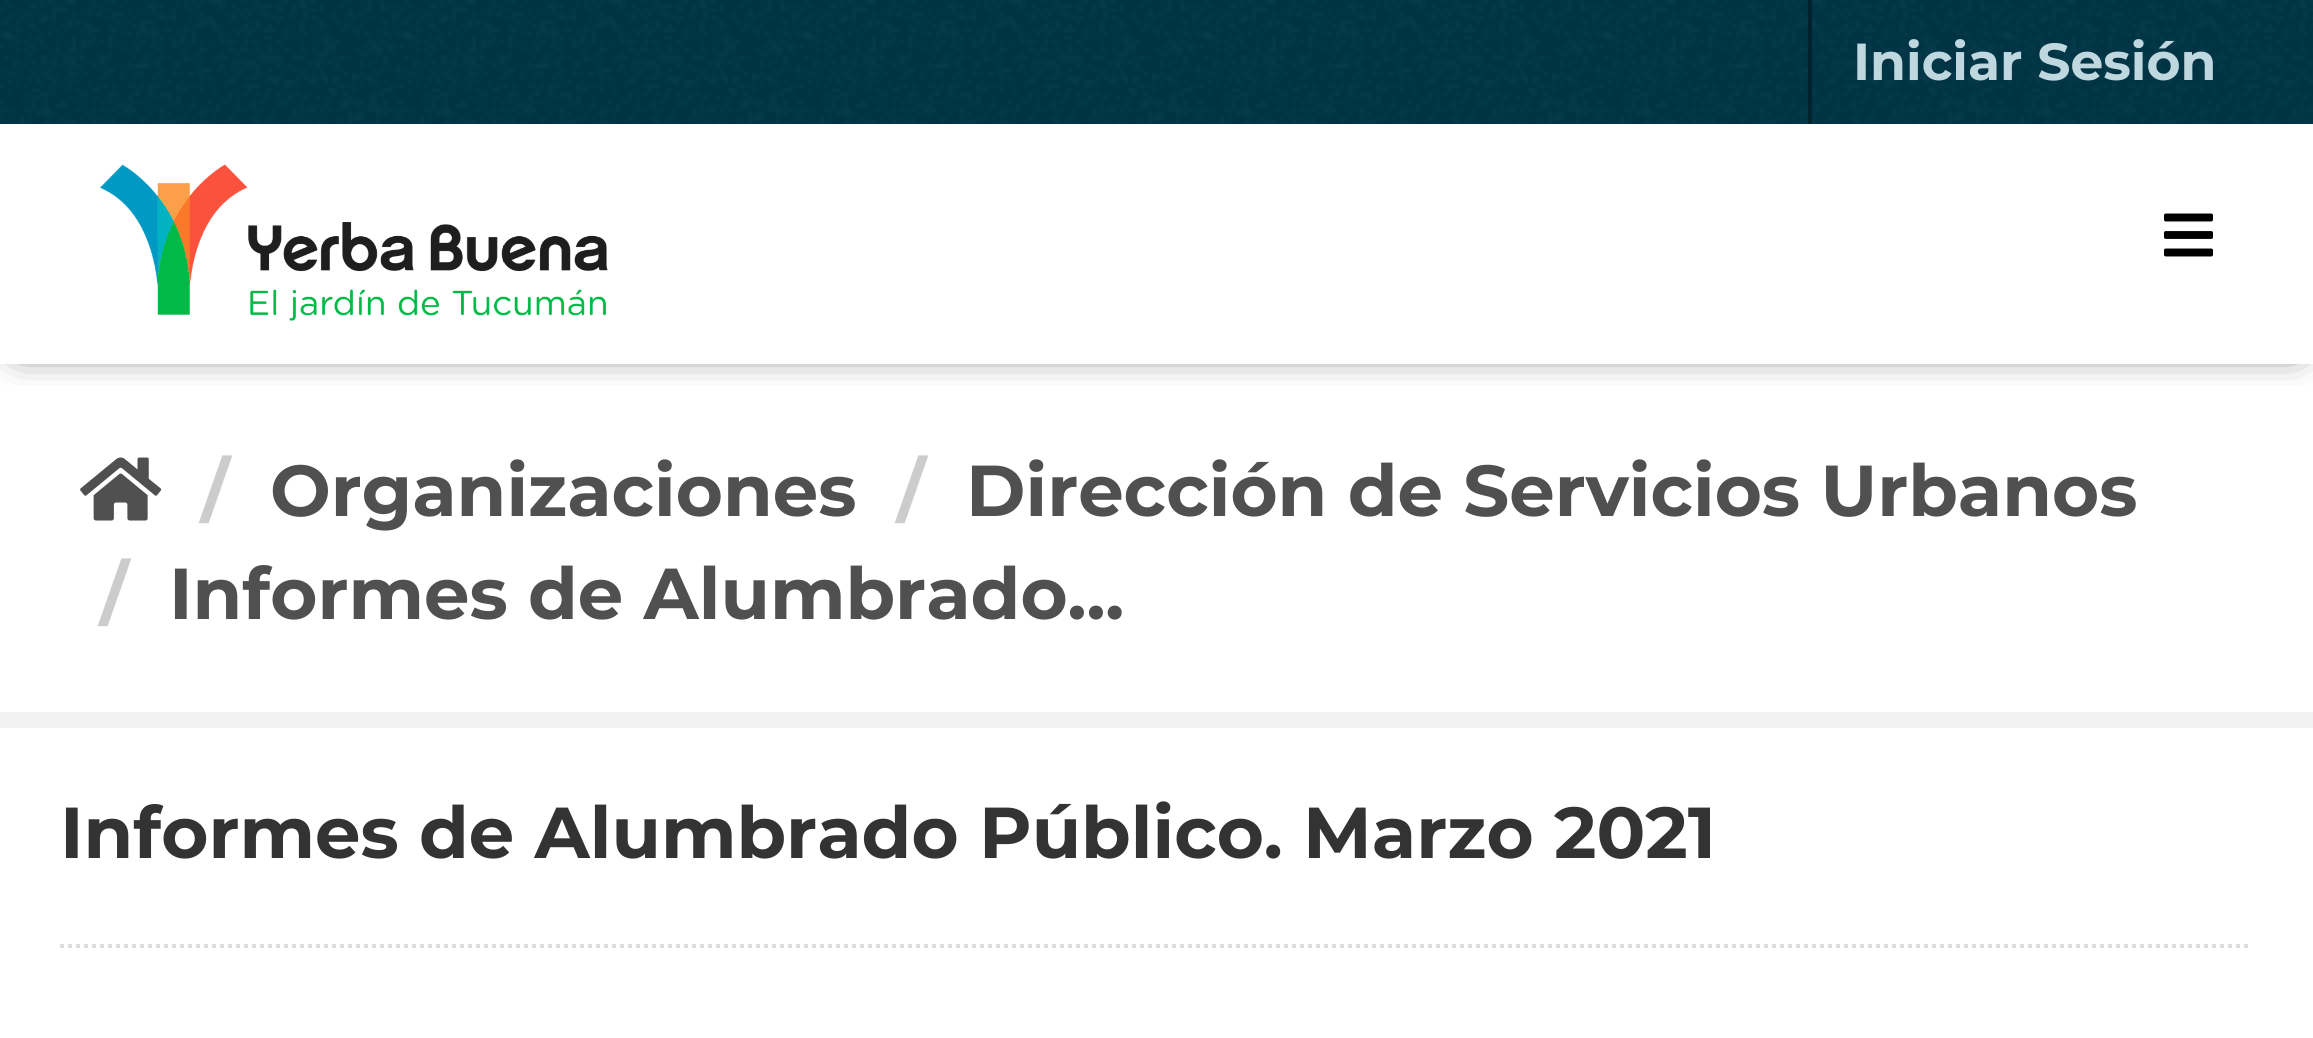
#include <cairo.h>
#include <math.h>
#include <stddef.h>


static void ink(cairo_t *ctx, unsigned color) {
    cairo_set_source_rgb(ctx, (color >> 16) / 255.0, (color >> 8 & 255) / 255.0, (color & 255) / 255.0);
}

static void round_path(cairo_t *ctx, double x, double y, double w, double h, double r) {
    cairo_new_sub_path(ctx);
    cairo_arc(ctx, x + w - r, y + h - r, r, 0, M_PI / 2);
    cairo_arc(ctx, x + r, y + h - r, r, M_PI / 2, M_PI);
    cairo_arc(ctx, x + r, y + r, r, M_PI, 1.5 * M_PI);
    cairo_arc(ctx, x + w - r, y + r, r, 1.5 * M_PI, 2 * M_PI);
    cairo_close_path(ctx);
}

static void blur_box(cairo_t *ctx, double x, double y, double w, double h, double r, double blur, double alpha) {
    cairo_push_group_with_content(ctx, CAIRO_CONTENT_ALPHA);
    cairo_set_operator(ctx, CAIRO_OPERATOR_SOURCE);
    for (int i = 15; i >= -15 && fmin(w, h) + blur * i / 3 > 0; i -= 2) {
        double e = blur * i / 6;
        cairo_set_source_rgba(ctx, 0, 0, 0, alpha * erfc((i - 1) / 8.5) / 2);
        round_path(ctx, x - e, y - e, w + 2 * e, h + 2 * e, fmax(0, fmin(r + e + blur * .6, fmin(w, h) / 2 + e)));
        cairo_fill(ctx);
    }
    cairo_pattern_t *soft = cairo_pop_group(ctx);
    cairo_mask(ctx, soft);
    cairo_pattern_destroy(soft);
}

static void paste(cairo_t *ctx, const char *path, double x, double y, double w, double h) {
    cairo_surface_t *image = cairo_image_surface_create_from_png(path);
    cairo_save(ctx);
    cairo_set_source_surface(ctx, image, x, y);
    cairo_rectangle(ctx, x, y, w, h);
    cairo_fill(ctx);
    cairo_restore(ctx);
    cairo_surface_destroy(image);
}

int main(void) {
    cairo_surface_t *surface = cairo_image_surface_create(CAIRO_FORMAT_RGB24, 2313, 1038);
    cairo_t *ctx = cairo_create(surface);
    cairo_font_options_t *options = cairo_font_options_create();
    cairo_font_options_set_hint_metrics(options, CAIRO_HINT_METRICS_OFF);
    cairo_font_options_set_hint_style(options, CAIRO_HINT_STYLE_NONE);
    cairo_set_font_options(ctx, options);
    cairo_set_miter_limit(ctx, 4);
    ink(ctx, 0xFFFFFF);
    cairo_paint(ctx);
    cairo_save(ctx);
    cairo_rectangle(ctx, 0, 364, 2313, 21);
    cairo_clip(ctx);
    ink(ctx, 0x000000);
    blur_box(ctx, 20, 144, 2276, 200, 0, 20, 1);
    cairo_restore(ctx);
    ink(ctx, 0x003647);
    cairo_rectangle(ctx, 0, 0, 2313, 124);
    cairo_fill(ctx);
    paste(ctx, "media/1.png", 0, 0, 2313, 124);
    ink(ctx, 0x00232E);
    cairo_rectangle(ctx, 1808, 0, 4, 124);
    cairo_fill(ctx);
    cairo_select_font_face(ctx, "Montserrat", CAIRO_FONT_SLANT_NORMAL, CAIRO_FONT_WEIGHT_BOLD);
    cairo_set_font_size(ctx, 52);
    ink(ctx, 0xBFD7DE);
    cairo_move_to(ctx, 1853, 80);
    cairo_show_text(ctx, "Iniciar Sesión");
    paste(ctx, "media/2.png", 99, 164, 509, 157);
    paste(ctx, "media/3.png", 2164, 213, 49, 44);
    paste(ctx, "media/4.png", 80, 457, 82, 64);
    cairo_set_font_size(ctx, 72);
    ink(ctx, 0xCCCCCC);
    cairo_move_to(ctx, 201, 516);
    cairo_show_text(ctx, "/");
    ink(ctx, 0x505050);
    cairo_move_to(ctx, 270, 516);
    cairo_show_text(ctx, "Organizaciones");
    ink(ctx, 0xCCCCCC);
    cairo_move_to(ctx, 897, 516);
    cairo_show_text(ctx, "/");
    ink(ctx, 0x505050);
    cairo_move_to(ctx, 966, 516);
    cairo_show_text(ctx, "Dirección de Servicios Urbanos");
    ink(ctx, 0xCCCCCC);
    cairo_move_to(ctx, 100, 619);
    cairo_show_text(ctx, "/");
    ink(ctx, 0x505050);
    cairo_move_to(ctx, 169, 619);
    cairo_show_text(ctx, "Informes de Alumbrado...");
    cairo_rectangle(ctx, -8, 720, 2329, 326);
    ink(ctx, 0xF2F2F2);
    cairo_set_line_width(ctx, 16);
    cairo_stroke(ctx);
    ink(ctx, 0x333333);
    cairo_move_to(ctx, 60, 858);
    cairo_show_text(ctx, "Informes de Alumbrado Público. Marzo 2021");
    cairo_new_path(ctx);
    cairo_move_to(ctx, 60, 946);
    cairo_line_to(ctx, 2252, 946);
    ink(ctx, 0xDDDDDD);
    cairo_set_line_width(ctx, 4);
    cairo_set_dash(ctx, (double[]){4, 4}, 2, 0);
    cairo_stroke(ctx);
    cairo_surface_write_to_png(surface, "image.png");
    cairo_font_options_destroy(options);
    cairo_destroy(ctx);
    cairo_surface_destroy(surface);
    return 0;
}
